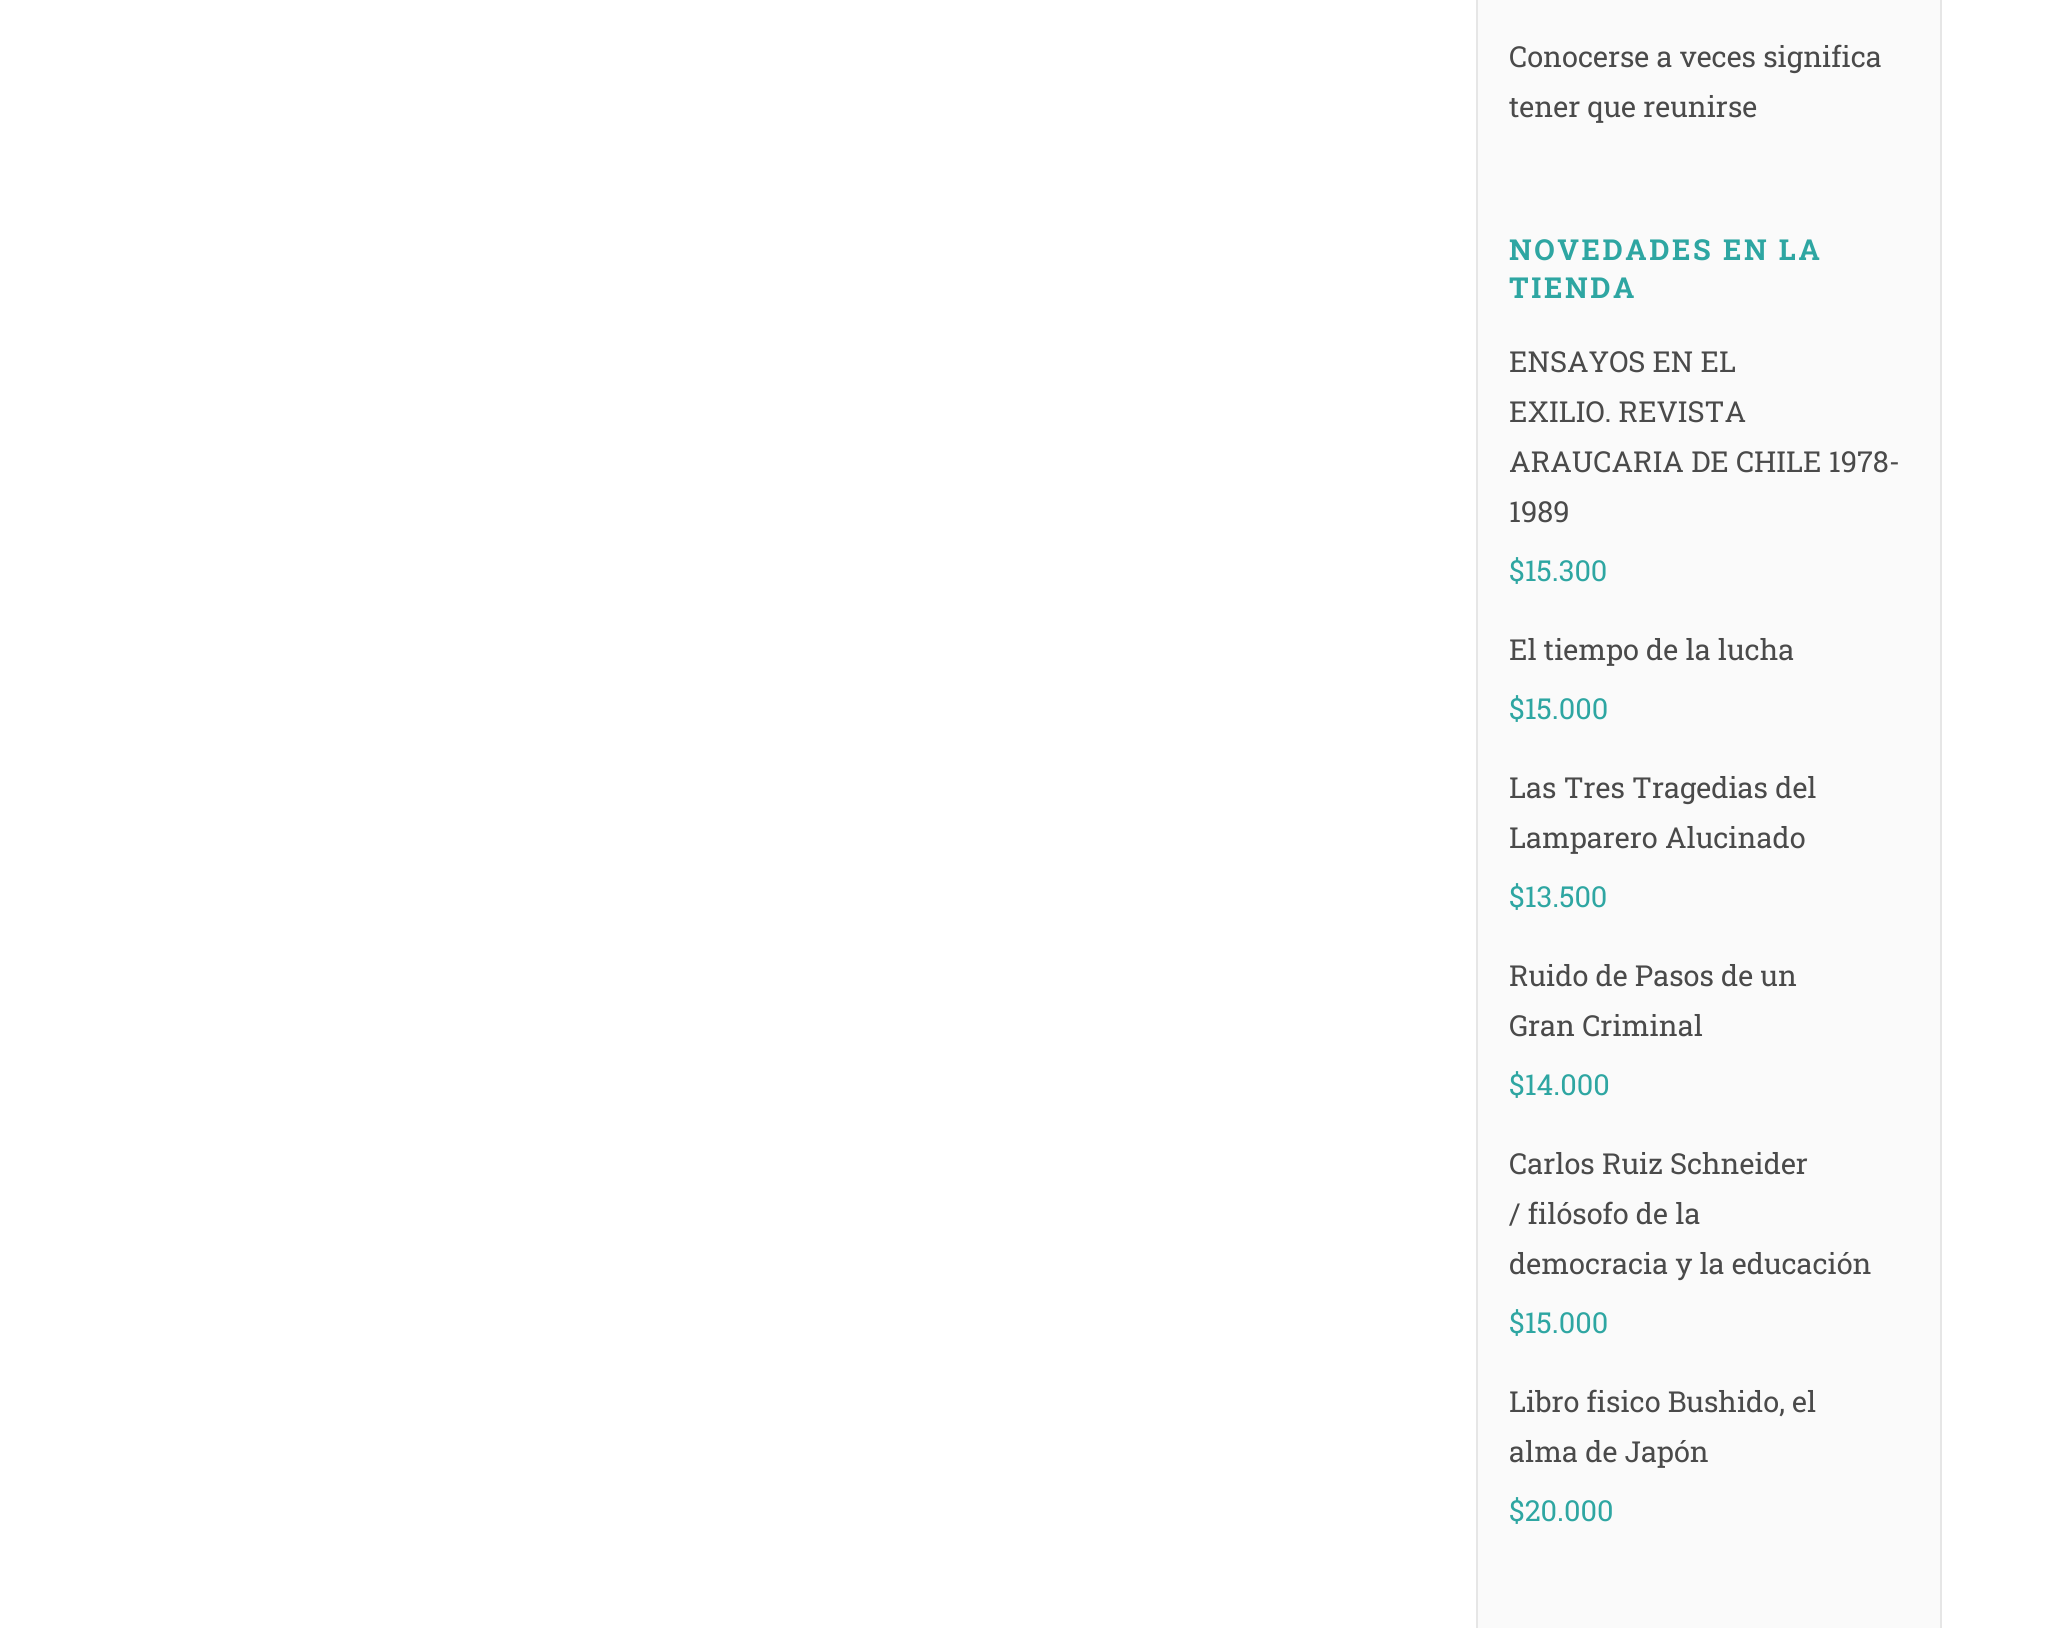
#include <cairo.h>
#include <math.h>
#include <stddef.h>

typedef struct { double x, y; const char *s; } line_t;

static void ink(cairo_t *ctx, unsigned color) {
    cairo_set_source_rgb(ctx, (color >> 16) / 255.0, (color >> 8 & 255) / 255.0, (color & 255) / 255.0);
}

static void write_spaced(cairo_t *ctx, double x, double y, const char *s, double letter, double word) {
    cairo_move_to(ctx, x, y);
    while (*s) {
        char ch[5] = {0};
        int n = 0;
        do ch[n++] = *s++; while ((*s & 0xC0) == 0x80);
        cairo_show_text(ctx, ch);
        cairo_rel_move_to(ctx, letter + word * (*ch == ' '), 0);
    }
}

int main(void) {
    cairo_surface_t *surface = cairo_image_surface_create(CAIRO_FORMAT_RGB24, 2059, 1628);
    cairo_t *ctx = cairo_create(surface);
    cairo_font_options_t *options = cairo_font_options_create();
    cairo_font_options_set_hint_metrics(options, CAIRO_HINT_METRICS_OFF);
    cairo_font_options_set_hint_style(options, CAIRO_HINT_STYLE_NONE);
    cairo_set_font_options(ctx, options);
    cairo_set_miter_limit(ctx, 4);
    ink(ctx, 0xFFFFFF);
    cairo_paint(ctx);
    ink(ctx, 0xFAFAFA);
    cairo_rectangle(ctx, 1477, -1, 464, 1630);
    cairo_fill_preserve(ctx);
    ink(ctx, 0xE6E6E6);
    cairo_stroke(ctx);
    cairo_select_font_face(ctx, "Roboto Slab", CAIRO_FONT_SLANT_NORMAL, CAIRO_FONT_WEIGHT_NORMAL);
    cairo_set_font_size(ctx, 28.9);
    ink(ctx, 0x4A4A4A);
    cairo_move_to(ctx, 1509, 67);
    cairo_show_text(ctx, "Conocerse a veces significa");
    cairo_move_to(ctx, 1509, 117);
    cairo_show_text(ctx, "tener que reunirse");
    cairo_select_font_face(ctx, "Roboto Slab", CAIRO_FONT_SLANT_NORMAL, CAIRO_FONT_WEIGHT_BOLD);
    ink(ctx, 0x2EA6A2);
    write_spaced(ctx, 1509, 260, "NOVEDADES EN LA", 2.6, 0);
    write_spaced(ctx, 1509, 298, "TIENDA", 2.6, 0);
    cairo_select_font_face(ctx, "Roboto Slab", CAIRO_FONT_SLANT_NORMAL, CAIRO_FONT_WEIGHT_NORMAL);
    ink(ctx, 0x4A4A4A);
    {
        static const line_t items[] = {
            {1509, 372, "ENSAYOS EN EL"},
            {1509, 422, "EXILIO. REVISTA"},
            {1509, 472, "ARAUCARIA DE CHILE 1978-"},
            {1509, 522, "1989"},
        };
        for (size_t i = 0; i < sizeof items / sizeof *items; i++) {
            cairo_move_to(ctx, items[i].x, items[i].y);
            cairo_show_text(ctx, items[i].s);
        }
    }
    ink(ctx, 0x2EA6A2);
    cairo_move_to(ctx, 1509, 581);
    cairo_show_text(ctx, "$15.300");
    ink(ctx, 0x4A4A4A);
    cairo_move_to(ctx, 1509, 660);
    cairo_show_text(ctx, "El tiempo de la lucha");
    ink(ctx, 0x2EA6A2);
    cairo_move_to(ctx, 1509, 719);
    cairo_show_text(ctx, "$15.000");
    ink(ctx, 0x4A4A4A);
    cairo_move_to(ctx, 1509, 798);
    cairo_show_text(ctx, "Las Tres Tragedias del");
    cairo_move_to(ctx, 1509, 848);
    cairo_show_text(ctx, "Lamparero Alucinado");
    ink(ctx, 0x2EA6A2);
    cairo_move_to(ctx, 1509, 907);
    cairo_show_text(ctx, "$13.500");
    ink(ctx, 0x4A4A4A);
    cairo_move_to(ctx, 1509, 986);
    cairo_show_text(ctx, "Ruido de Pasos de un");
    cairo_move_to(ctx, 1509, 1036);
    cairo_show_text(ctx, "Gran Criminal");
    ink(ctx, 0x2EA6A2);
    cairo_move_to(ctx, 1509, 1095);
    cairo_show_text(ctx, "$14.000");
    ink(ctx, 0x4A4A4A);
    {
        static const line_t items[] = {
            {1509, 1174, "Carlos Ruiz Schneider"},
            {1509, 1224, "/ filósofo de la"},
            {1509, 1274, "democracia y la educación"},
        };
        for (size_t i = 0; i < sizeof items / sizeof *items; i++) {
            cairo_move_to(ctx, items[i].x, items[i].y);
            cairo_show_text(ctx, items[i].s);
        }
    }
    ink(ctx, 0x2EA6A2);
    cairo_move_to(ctx, 1509, 1333);
    cairo_show_text(ctx, "$15.000");
    ink(ctx, 0x4A4A4A);
    cairo_move_to(ctx, 1509, 1412);
    cairo_show_text(ctx, "Libro fisico Bushido, el");
    cairo_move_to(ctx, 1509, 1462);
    cairo_show_text(ctx, "alma de Japón");
    ink(ctx, 0x2EA6A2);
    cairo_move_to(ctx, 1509, 1521);
    cairo_show_text(ctx, "$20.000");
    cairo_surface_write_to_png(surface, "image.png");
    cairo_font_options_destroy(options);
    cairo_destroy(ctx);
    cairo_surface_destroy(surface);
    return 0;
}
